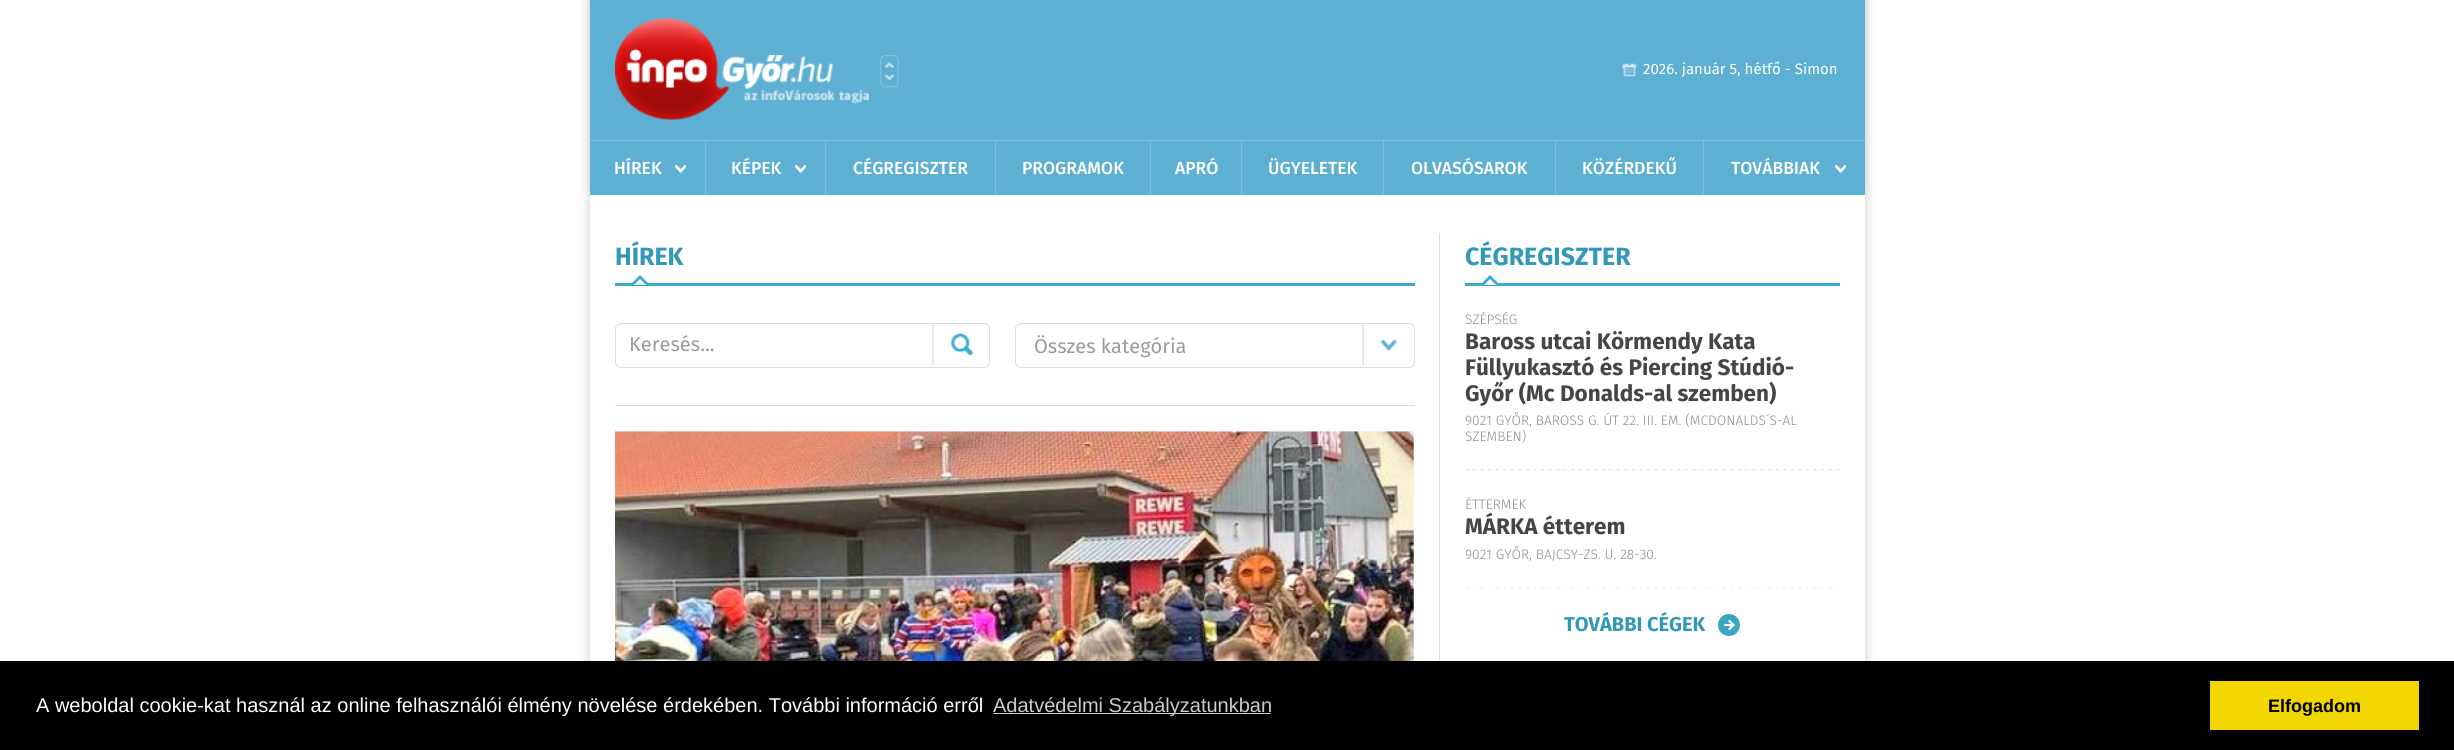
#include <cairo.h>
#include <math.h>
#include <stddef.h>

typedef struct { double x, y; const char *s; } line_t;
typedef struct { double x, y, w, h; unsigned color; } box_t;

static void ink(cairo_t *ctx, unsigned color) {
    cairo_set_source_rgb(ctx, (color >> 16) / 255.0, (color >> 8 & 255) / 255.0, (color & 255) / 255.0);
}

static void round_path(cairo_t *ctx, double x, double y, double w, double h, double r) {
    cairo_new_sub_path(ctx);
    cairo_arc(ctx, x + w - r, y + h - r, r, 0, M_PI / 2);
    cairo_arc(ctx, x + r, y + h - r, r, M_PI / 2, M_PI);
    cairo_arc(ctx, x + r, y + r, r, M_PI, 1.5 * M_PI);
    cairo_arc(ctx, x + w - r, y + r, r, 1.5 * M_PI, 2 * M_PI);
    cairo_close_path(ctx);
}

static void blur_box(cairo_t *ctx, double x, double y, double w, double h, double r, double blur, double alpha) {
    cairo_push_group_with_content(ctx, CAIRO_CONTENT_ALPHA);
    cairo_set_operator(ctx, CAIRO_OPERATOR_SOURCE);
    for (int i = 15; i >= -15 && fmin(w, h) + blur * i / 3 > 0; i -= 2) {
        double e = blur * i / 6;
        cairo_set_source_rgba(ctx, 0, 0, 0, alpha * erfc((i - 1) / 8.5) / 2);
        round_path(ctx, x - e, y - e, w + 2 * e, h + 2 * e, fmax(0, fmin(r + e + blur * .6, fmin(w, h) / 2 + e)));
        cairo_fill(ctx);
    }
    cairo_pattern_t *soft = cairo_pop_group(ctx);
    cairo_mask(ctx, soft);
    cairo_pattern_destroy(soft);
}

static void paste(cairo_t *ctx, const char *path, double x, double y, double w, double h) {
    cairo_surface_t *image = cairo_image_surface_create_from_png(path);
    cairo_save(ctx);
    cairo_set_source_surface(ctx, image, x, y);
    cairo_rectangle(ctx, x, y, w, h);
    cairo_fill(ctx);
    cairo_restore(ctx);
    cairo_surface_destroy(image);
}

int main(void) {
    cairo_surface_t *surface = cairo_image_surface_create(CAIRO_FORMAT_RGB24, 2454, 750);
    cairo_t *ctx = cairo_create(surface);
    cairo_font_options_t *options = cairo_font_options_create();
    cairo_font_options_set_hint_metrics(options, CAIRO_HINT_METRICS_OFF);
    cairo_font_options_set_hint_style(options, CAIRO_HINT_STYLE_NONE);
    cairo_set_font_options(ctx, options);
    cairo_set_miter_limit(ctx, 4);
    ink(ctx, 0xFFFFFF);
    cairo_paint(ctx);
    ink(ctx, 0x000000);
    blur_box(ctx, 590, 0, 1275, 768, 0, 6, 0.2);
    blur_box(ctx, 590, -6, 1275, 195, 0, 4.5, 0.09);
    ink(ctx, 0x5EB0D2);
    cairo_rectangle(ctx, 590, 0, 1275, 195);
    cairo_fill(ctx);
    paste(ctx, "media/1.png", 615, 17, 254, 103);
    paste(ctx, "media/2.png", 880, 55, 19, 33);
    paste(ctx, "media/3.png", 1622, 63, 15, 14);
    cairo_select_font_face(ctx, "Fira Sans", CAIRO_FONT_SLANT_NORMAL, CAIRO_FONT_WEIGHT_NORMAL);
    cairo_set_font_size(ctx, 15);
    ink(ctx, 0xFFFFFF);
    cairo_move_to(ctx, 1643, 74);
    cairo_show_text(ctx, "2026. január 5, hétfő - Simon");
    ink(ctx, 0x7EC0DB);
    cairo_rectangle(ctx, 590, 140, 1275, 1);
    cairo_fill(ctx);
    cairo_rectangle(ctx, 705, 141, 1, 54);
    cairo_fill(ctx);
    paste(ctx, "media/4.png", 675, 165, 11, 8);
    cairo_select_font_face(ctx, "Fira Sans Medium", CAIRO_FONT_SLANT_NORMAL, CAIRO_FONT_WEIGHT_NORMAL);
    cairo_set_font_size(ctx, 17.5);
    ink(ctx, 0xFFFFFF);
    cairo_move_to(ctx, 614, 174);
    cairo_show_text(ctx, "HÍREK");
    ink(ctx, 0x7EC0DB);
    cairo_rectangle(ctx, 825, 141, 1, 54);
    cairo_fill(ctx);
    paste(ctx, "media/4.png", 795, 165, 11, 8);
    ink(ctx, 0xFFFFFF);
    cairo_move_to(ctx, 731, 174);
    cairo_show_text(ctx, "KÉPEK");
    ink(ctx, 0x7EC0DB);
    cairo_rectangle(ctx, 995, 141, 1, 54);
    cairo_fill(ctx);
    ink(ctx, 0xFFFFFF);
    cairo_move_to(ctx, 853, 174);
    cairo_show_text(ctx, "CÉGREGISZTER");
    ink(ctx, 0x7EC0DB);
    cairo_rectangle(ctx, 1150, 141, 1, 54);
    cairo_fill(ctx);
    ink(ctx, 0xFFFFFF);
    cairo_move_to(ctx, 1022, 174);
    cairo_show_text(ctx, "PROGRAMOK");
    ink(ctx, 0x7EC0DB);
    cairo_rectangle(ctx, 1241, 141, 1, 54);
    cairo_fill(ctx);
    ink(ctx, 0xFFFFFF);
    cairo_move_to(ctx, 1175, 174);
    cairo_show_text(ctx, "APRÓ");
    ink(ctx, 0x7EC0DB);
    cairo_rectangle(ctx, 1383, 141, 1, 54);
    cairo_fill(ctx);
    ink(ctx, 0xFFFFFF);
    cairo_move_to(ctx, 1268, 174);
    cairo_show_text(ctx, "ÜGYELETEK");
    ink(ctx, 0x7EC0DB);
    cairo_rectangle(ctx, 1555, 141, 1, 54);
    cairo_fill(ctx);
    ink(ctx, 0xFFFFFF);
    cairo_move_to(ctx, 1411, 174);
    cairo_show_text(ctx, "OLVASÓSAROK");
    ink(ctx, 0x7EC0DB);
    cairo_rectangle(ctx, 1703, 141, 1, 54);
    cairo_fill(ctx);
    ink(ctx, 0xFFFFFF);
    cairo_move_to(ctx, 1582, 174);
    cairo_show_text(ctx, "KÖZÉRDEKŰ");
    paste(ctx, "media/4.png", 1835, 165, 11, 8);
    cairo_move_to(ctx, 1731, 174);
    cairo_show_text(ctx, "TOVÁBBIAK");
    {
        static const box_t items[] = {
            {590, 195, 1275, 466, 0xFFFFFF},
            {1439, 233, 1, 428, 0xDDDDDD},
            {615, 283, 800, 3, 0x38ACD0},
        };
        for (size_t i = 0; i < sizeof items / sizeof *items; i++) {
            ink(ctx, items[i].color);
            cairo_rectangle(ctx, items[i].x, items[i].y, items[i].w, items[i].h);
            cairo_fill(ctx);
        }
    }
    cairo_select_font_face(ctx, "Fira Sans", CAIRO_FONT_SLANT_NORMAL, CAIRO_FONT_WEIGHT_BOLD);
    cairo_set_font_size(ctx, 25);
    ink(ctx, 0x3198B8);
    cairo_move_to(ctx, 615, 265);
    cairo_show_text(ctx, "HÍREK");
    ink(ctx, 0x38ACD0);
    cairo_new_path(ctx);
    cairo_move_to(ctx, 650, 285);
    cairo_line_to(ctx, 630, 285);
    cairo_line_to(ctx, 640, 275);
    cairo_close_path(ctx);
    cairo_fill(ctx);
    ink(ctx, 0xFFFFFF);
    cairo_new_path(ctx);
    cairo_move_to(ctx, 646, 285);
    cairo_line_to(ctx, 634, 285);
    cairo_line_to(ctx, 640, 279);
    cairo_close_path(ctx);
    cairo_fill(ctx);
    ink(ctx, 0xDDDDDD);
    cairo_rectangle(ctx, 615, 405, 800, 1);
    cairo_fill(ctx);
    round_path(ctx, 615.5, 323.5, 374, 44, 5.5);
    cairo_set_line_width(ctx, 1);
    cairo_stroke(ctx);
    cairo_select_font_face(ctx, "Fira Sans", CAIRO_FONT_SLANT_NORMAL, CAIRO_FONT_WEIGHT_NORMAL);
    cairo_set_font_size(ctx, 20);
    ink(ctx, 0x9A9A9A);
    cairo_move_to(ctx, 629, 351);
    cairo_show_text(ctx, "Keresés...");
    paste(ctx, "media/5.png", 932, 324, 41, 43);
    paste(ctx, "media/6.png", 1362, 324, 35, 43);
    round_path(ctx, 1015.5, 323.5, 399, 44, 5.5);
    ink(ctx, 0xDDDDDD);
    cairo_stroke(ctx);
    ink(ctx, 0x9A9A9A);
    cairo_move_to(ctx, 1034, 353);
    cairo_show_text(ctx, "Összes kategória");
    paste(ctx, "media/7.png", 615, 431, 799, 230);
    ink(ctx, 0x38ACD0);
    cairo_rectangle(ctx, 1465, 283, 375, 3);
    cairo_fill(ctx);
    cairo_select_font_face(ctx, "Fira Sans", CAIRO_FONT_SLANT_NORMAL, CAIRO_FONT_WEIGHT_BOLD);
    cairo_set_font_size(ctx, 25);
    ink(ctx, 0x3198B8);
    cairo_move_to(ctx, 1465, 265);
    cairo_show_text(ctx, "CÉGREGISZTER");
    ink(ctx, 0x38ACD0);
    cairo_new_path(ctx);
    cairo_move_to(ctx, 1500, 285);
    cairo_line_to(ctx, 1480, 285);
    cairo_line_to(ctx, 1490, 275);
    cairo_close_path(ctx);
    cairo_fill(ctx);
    ink(ctx, 0xFFFFFF);
    cairo_new_path(ctx);
    cairo_move_to(ctx, 1496, 285);
    cairo_line_to(ctx, 1484, 285);
    cairo_line_to(ctx, 1490, 279);
    cairo_close_path(ctx);
    cairo_fill(ctx);
    paste(ctx, "media/8.png", 1465, 469, 374, 1);
    cairo_select_font_face(ctx, "Fira Sans Light", CAIRO_FONT_SLANT_NORMAL, CAIRO_FONT_WEIGHT_NORMAL);
    cairo_set_font_size(ctx, 13.75);
    ink(ctx, 0x8B8B8B);
    cairo_move_to(ctx, 1465, 324);
    cairo_show_text(ctx, "SZÉPSÉG");
    cairo_select_font_face(ctx, "Fira Sans", CAIRO_FONT_SLANT_NORMAL, CAIRO_FONT_WEIGHT_BOLD);
    cairo_set_font_size(ctx, 22.5);
    ink(ctx, 0x454545);
    {
        static const line_t items[] = {
            {1465, 349, "Baross utcai Körmendy Kata"},
            {1465, 375, "Füllyukasztó és Piercing Stúdió-"},
            {1465, 401, "Győr (Mc Donalds-al szemben)"},
        };
        for (size_t i = 0; i < sizeof items / sizeof *items; i++) {
            cairo_move_to(ctx, items[i].x, items[i].y);
            cairo_show_text(ctx, items[i].s);
        }
    }
    cairo_select_font_face(ctx, "Fira Sans Light", CAIRO_FONT_SLANT_NORMAL, CAIRO_FONT_WEIGHT_NORMAL);
    cairo_set_font_size(ctx, 13.75);
    ink(ctx, 0x8B8B8B);
    cairo_move_to(ctx, 1465, 425);
    cairo_show_text(ctx, "9021 GYŐR, BAROSS G. ÚT 22. III. EM. (MCDONALDS´S-AL");
    cairo_move_to(ctx, 1465, 441);
    cairo_show_text(ctx, "SZEMBEN)");
    paste(ctx, "media/9.png", 1465, 588, 374, 1);
    cairo_move_to(ctx, 1465, 509);
    cairo_show_text(ctx, "ÉTTERMEK");
    cairo_select_font_face(ctx, "Fira Sans", CAIRO_FONT_SLANT_NORMAL, CAIRO_FONT_WEIGHT_BOLD);
    cairo_set_font_size(ctx, 22.5);
    ink(ctx, 0x454545);
    cairo_move_to(ctx, 1465, 534);
    cairo_show_text(ctx, "MÁRKA étterem");
    cairo_select_font_face(ctx, "Fira Sans Light", CAIRO_FONT_SLANT_NORMAL, CAIRO_FONT_WEIGHT_NORMAL);
    cairo_set_font_size(ctx, 13.75);
    ink(ctx, 0x8B8B8B);
    cairo_move_to(ctx, 1465, 559);
    cairo_show_text(ctx, "9021 GYŐR, BAJCSY-ZS. U. 28-30.");
    paste(ctx, "media/10.png", 1718, 614, 22, 22);
    cairo_select_font_face(ctx, "Fira Sans", CAIRO_FONT_SLANT_NORMAL, CAIRO_FONT_WEIGHT_BOLD);
    cairo_set_font_size(ctx, 20);
    ink(ctx, 0x3198B8);
    cairo_move_to(ctx, 1564, 631);
    cairo_show_text(ctx, "TOVÁBBI CÉGEK");
    ink(ctx, 0x000000);
    cairo_rectangle(ctx, 0, 661, 2454, 89);
    cairo_fill(ctx);
    cairo_select_font_face(ctx, "Liberation Sans", CAIRO_FONT_SLANT_NORMAL, CAIRO_FONT_WEIGHT_NORMAL);
    ink(ctx, 0xFFFFFF);
    cairo_move_to(ctx, 36, 712);
    cairo_show_text(ctx, "A weboldal cookie-kat használ az online felhasználói élmény növelése érdekében. További információ erről");
    ink(ctx, 0xCCCCCC);
    cairo_rectangle(ctx, 993, 713, 278, 1);
    cairo_fill(ctx);
    cairo_move_to(ctx, 993, 712);
    cairo_show_text(ctx, "Adatvédelmi Szabályzatunkban");
    ink(ctx, 0xF1D600);
    cairo_rectangle(ctx, 2210, 681, 209, 49);
    cairo_fill(ctx);
    cairo_select_font_face(ctx, "Liberation Sans", CAIRO_FONT_SLANT_NORMAL, CAIRO_FONT_WEIGHT_BOLD);
    cairo_set_font_size(ctx, 18);
    ink(ctx, 0x000000);
    cairo_move_to(ctx, 2268, 712);
    cairo_show_text(ctx, "Elfogadom");
    cairo_surface_write_to_png(surface, "image.png");
    cairo_font_options_destroy(options);
    cairo_destroy(ctx);
    cairo_surface_destroy(surface);
    return 0;
}
